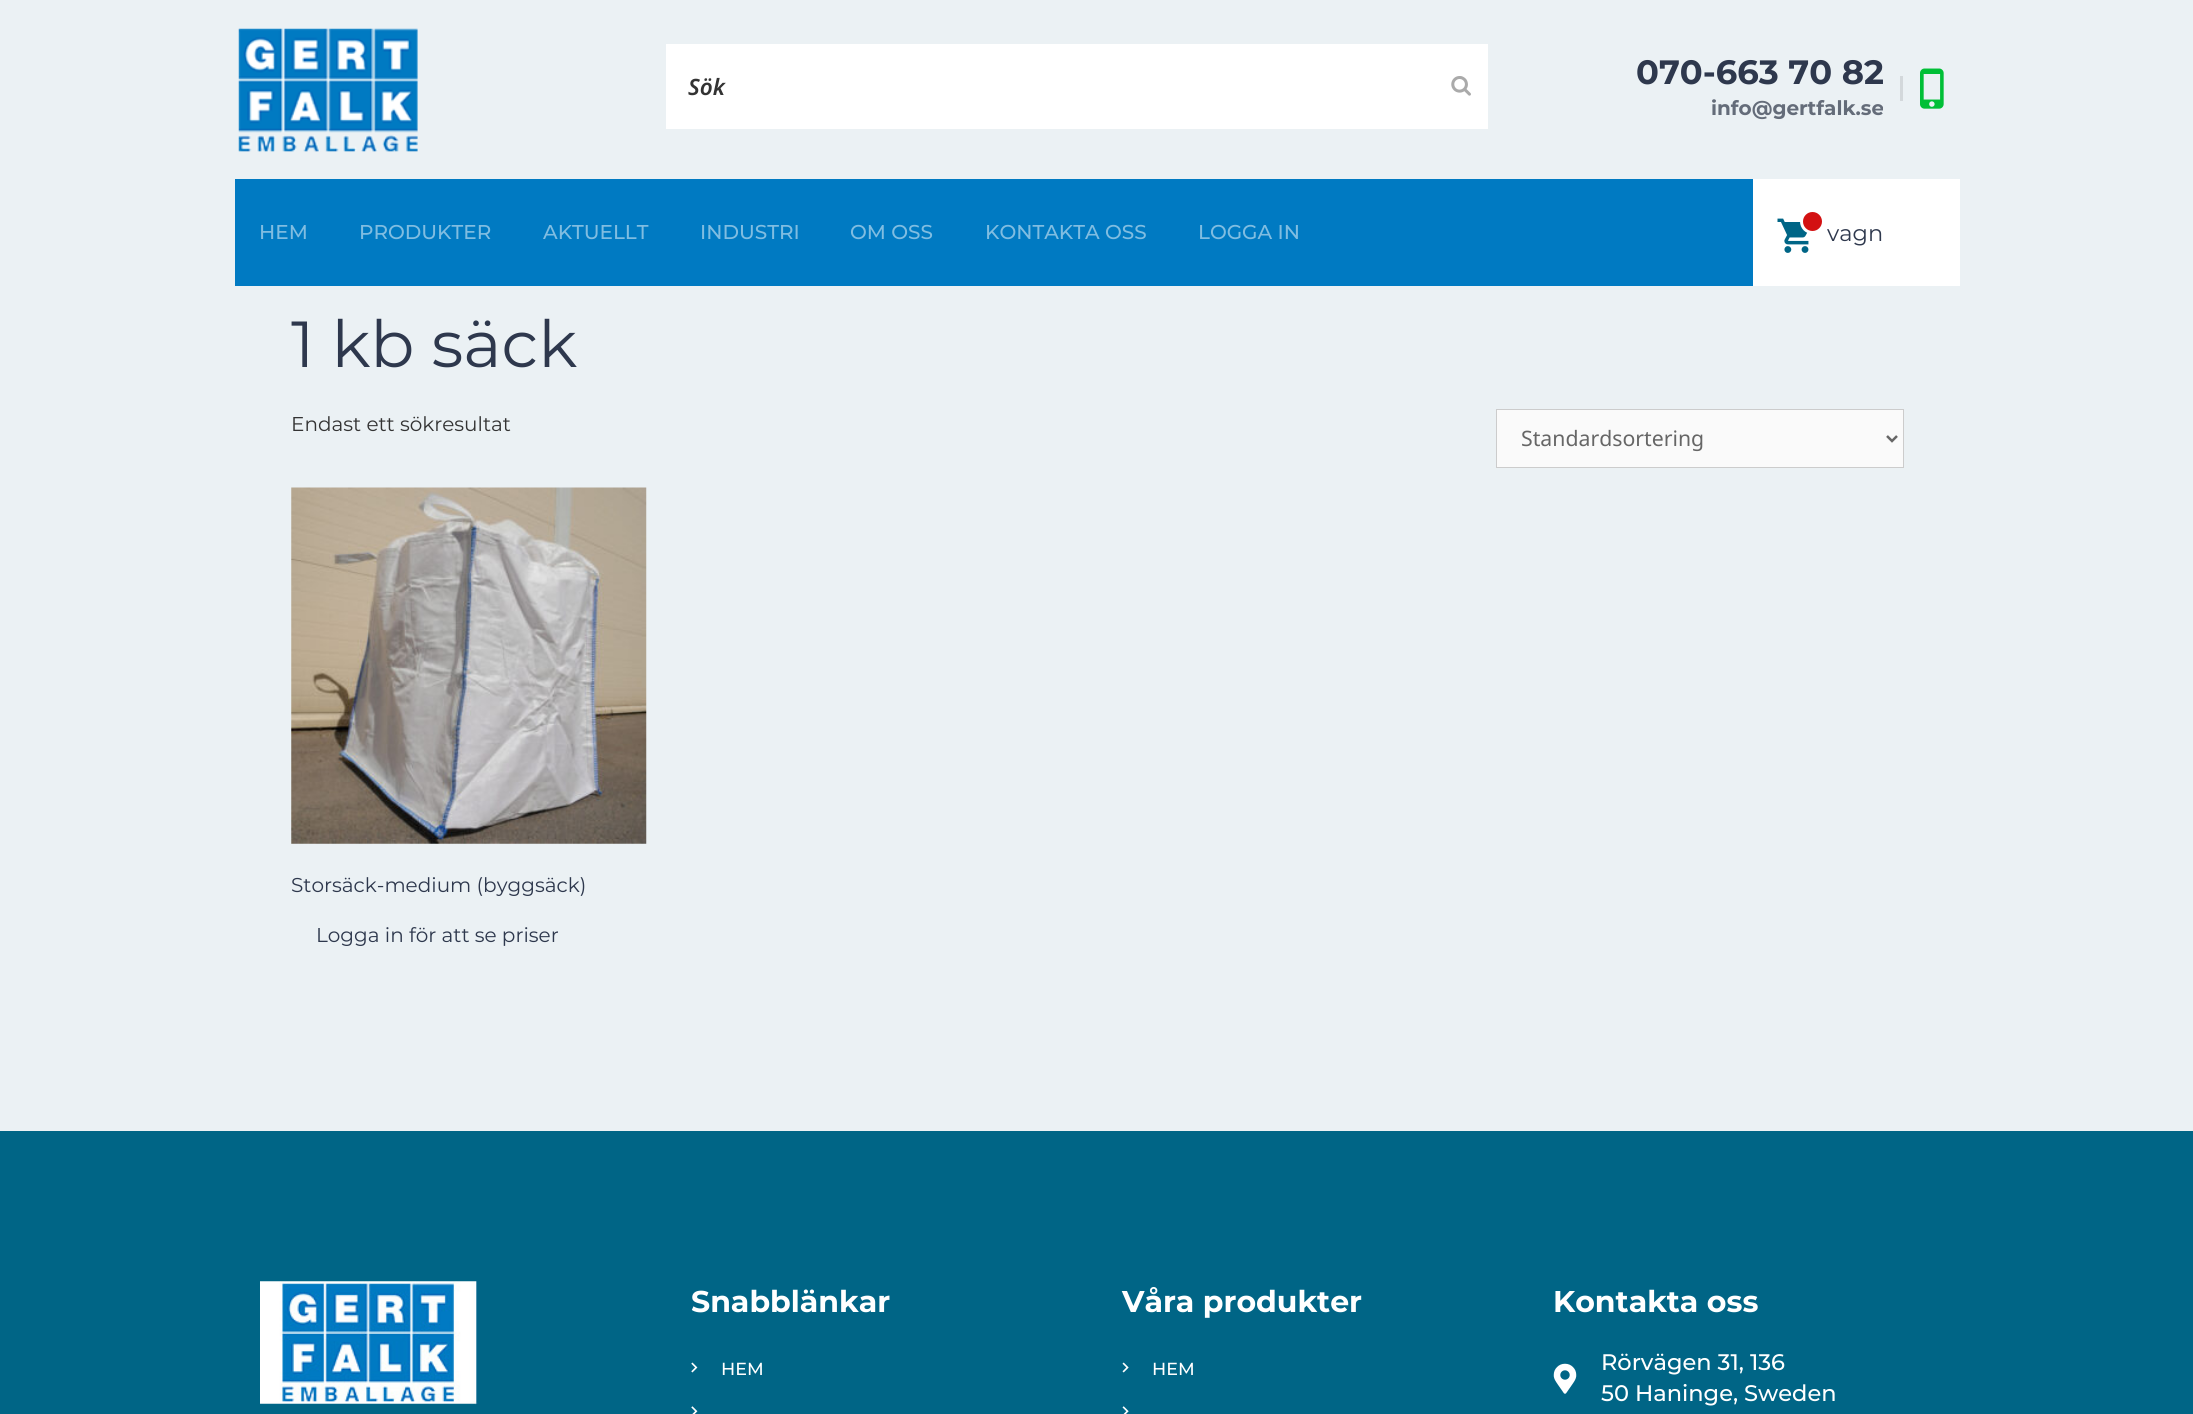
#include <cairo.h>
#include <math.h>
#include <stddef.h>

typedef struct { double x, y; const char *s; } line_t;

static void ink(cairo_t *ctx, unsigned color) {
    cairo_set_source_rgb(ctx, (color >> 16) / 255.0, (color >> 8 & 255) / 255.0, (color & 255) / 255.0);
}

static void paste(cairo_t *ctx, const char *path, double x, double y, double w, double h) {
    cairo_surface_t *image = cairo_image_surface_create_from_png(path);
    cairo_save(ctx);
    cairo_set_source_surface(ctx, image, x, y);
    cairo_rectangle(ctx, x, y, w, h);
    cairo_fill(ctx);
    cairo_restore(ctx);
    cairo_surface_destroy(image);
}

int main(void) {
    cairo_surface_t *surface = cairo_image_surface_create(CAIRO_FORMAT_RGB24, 2193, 1414);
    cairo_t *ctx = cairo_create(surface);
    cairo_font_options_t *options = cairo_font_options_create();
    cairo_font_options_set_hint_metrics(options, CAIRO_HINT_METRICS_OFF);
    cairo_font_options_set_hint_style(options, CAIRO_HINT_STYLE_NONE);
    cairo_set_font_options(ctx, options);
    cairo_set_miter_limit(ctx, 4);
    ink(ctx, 0xEBF1F4);
    cairo_paint(ctx);
    paste(ctx, "media/1.png", 238, 28, 180, 124);
    ink(ctx, 0xFFFFFF);
    cairo_rectangle(ctx, 666, 44, 822, 85);
    cairo_fill(ctx);
    cairo_select_font_face(ctx, "Noto Sans SemiBold", CAIRO_FONT_SLANT_ITALIC, CAIRO_FONT_WEIGHT_NORMAL);
    cairo_set_font_size(ctx, 22.5);
    ink(ctx, 0x333333);
    cairo_move_to(ctx, 688, 95);
    cairo_show_text(ctx, "Sök");
    paste(ctx, "media/2.png", 1451, 76, 20, 20);
    cairo_select_font_face(ctx, "Montserrat", CAIRO_FONT_SLANT_NORMAL, CAIRO_FONT_WEIGHT_BOLD);
    cairo_set_font_size(ctx, 33.75);
    ink(ctx, 0x2E384D);
    cairo_move_to(ctx, 1636, 84);
    cairo_show_text(ctx, "070-663 70 82");
    paste(ctx, "media/3.png", 1920, 68, 24, 41);
    cairo_set_font_size(ctx, 20);
    ink(ctx, 0x646C79);
    cairo_move_to(ctx, 1711, 115);
    cairo_show_text(ctx, "info@gertfalk.se");
    ink(ctx, 0xD3D8DB);
    cairo_rectangle(ctx, 1900, 76, 3, 25);
    cairo_fill(ctx);
    ink(ctx, 0x007AC2);
    cairo_rectangle(ctx, 235, 179, 1518, 107);
    cairo_fill(ctx);
    cairo_select_font_face(ctx, "Montserrat Medium", CAIRO_FONT_SLANT_NORMAL, CAIRO_FONT_WEIGHT_NORMAL);
    ink(ctx, 0x80BDE1);
    {
        static const line_t items[] = {
            {259, 239, "HEM"},
            {359, 239, "PRODUKTER"},
            {543, 239, "AKTUELLT"},
            {700, 239, "INDUSTRI"},
            {850, 239, "OM OSS"},
            {985, 239, "KONTAKTA OSS"},
            {1198, 239, "LOGGA IN"},
        };
        for (size_t i = 0; i < sizeof items / sizeof *items; i++) {
            cairo_move_to(ctx, items[i].x, items[i].y);
            cairo_show_text(ctx, items[i].s);
        }
    }
    ink(ctx, 0xFFFFFF);
    cairo_rectangle(ctx, 1753, 179, 207, 107);
    cairo_fill(ctx);
    paste(ctx, "media/4.png", 1777, 218, 32, 35);
    ink(ctx, 0xD31112);
    cairo_arc(ctx, 1812.5, 221.5, 11, 0, 2 * M_PI);
    cairo_fill_preserve(ctx);
    ink(ctx, 0xFFFFFF);
    cairo_set_line_width(ctx, 3);
    cairo_stroke(ctx);
    cairo_select_font_face(ctx, "Montserrat", CAIRO_FONT_SLANT_NORMAL, CAIRO_FONT_WEIGHT_NORMAL);
    cairo_set_font_size(ctx, 22.5);
    ink(ctx, 0x2E384D);
    cairo_move_to(ctx, 1827, 241);
    cairo_show_text(ctx, "vagn");
    cairo_set_font_size(ctx, 65);
    cairo_move_to(ctx, 291, 367);
    cairo_show_text(ctx, "1 kb säck");
    cairo_set_font_size(ctx, 20);
    ink(ctx, 0x333333);
    cairo_move_to(ctx, 291, 431);
    cairo_show_text(ctx, "Endast ett sökresultat");
    ink(ctx, 0xFAFAFA);
    cairo_rectangle(ctx, 1496.5, 409.5, 407, 58);
    cairo_fill_preserve(ctx);
    ink(ctx, 0xCCCCCC);
    cairo_set_line_width(ctx, 1);
    cairo_stroke(ctx);
    cairo_new_path(ctx);
    cairo_move_to(ctx, 1887, 436);
    cairo_line_to(ctx, 1892, 441);
    cairo_line_to(ctx, 1897, 436);
    ink(ctx, 0x666666);
    cairo_set_line_width(ctx, 2.5);
    cairo_stroke(ctx);
    cairo_select_font_face(ctx, "Noto Sans", CAIRO_FONT_SLANT_NORMAL, CAIRO_FONT_WEIGHT_NORMAL);
    cairo_set_font_size(ctx, 21.25);
    cairo_move_to(ctx, 1521, 446);
    cairo_show_text(ctx, "Standardsortering");
    paste(ctx, "media/5.png", 291, 487, 356, 357);
    cairo_select_font_face(ctx, "Montserrat", CAIRO_FONT_SLANT_NORMAL, CAIRO_FONT_WEIGHT_NORMAL);
    cairo_set_font_size(ctx, 20);
    ink(ctx, 0x2E384D);
    cairo_move_to(ctx, 291, 892);
    cairo_show_text(ctx, "Storsäck-medium (byggsäck)");
    cairo_move_to(ctx, 316, 942);
    cairo_show_text(ctx, "Logga in för att se priser");
    ink(ctx, 0x006586);
    cairo_rectangle(ctx, 0, 1131, 2193, 283);
    cairo_fill(ctx);
    paste(ctx, "media/6.png", 260, 1281, 218, 124);
    cairo_select_font_face(ctx, "Montserrat", CAIRO_FONT_SLANT_NORMAL, CAIRO_FONT_WEIGHT_BOLD);
    cairo_set_font_size(ctx, 30);
    ink(ctx, 0xFFFFFF);
    cairo_move_to(ctx, 691, 1312);
    cairo_show_text(ctx, "Snabblänkar");
    paste(ctx, "media/7.png", 691, 1362, 7, 11);
    cairo_select_font_face(ctx, "Montserrat Medium", CAIRO_FONT_SLANT_NORMAL, CAIRO_FONT_WEIGHT_NORMAL);
    cairo_set_font_size(ctx, 17.5);
    cairo_move_to(ctx, 721, 1375);
    cairo_show_text(ctx, "HEM");
    paste(ctx, "media/8.png", 691, 1406, 7, 8);
    cairo_select_font_face(ctx, "Montserrat", CAIRO_FONT_SLANT_NORMAL, CAIRO_FONT_WEIGHT_BOLD);
    cairo_set_font_size(ctx, 30);
    cairo_move_to(ctx, 1122, 1312);
    cairo_show_text(ctx, "Våra produkter");
    paste(ctx, "media/9.png", 1122, 1362, 7, 11);
    cairo_select_font_face(ctx, "Montserrat Medium", CAIRO_FONT_SLANT_NORMAL, CAIRO_FONT_WEIGHT_NORMAL);
    cairo_set_font_size(ctx, 17.5);
    cairo_move_to(ctx, 1152, 1375);
    cairo_show_text(ctx, "HEM");
    paste(ctx, "media/10.png", 1122, 1406, 7, 8);
    cairo_select_font_face(ctx, "Montserrat", CAIRO_FONT_SLANT_NORMAL, CAIRO_FONT_WEIGHT_BOLD);
    cairo_set_font_size(ctx, 30);
    cairo_move_to(ctx, 1553, 1312);
    cairo_show_text(ctx, "Kontakta oss");
    paste(ctx, "media/11.png", 1553, 1363, 24, 31);
    cairo_select_font_face(ctx, "Montserrat Medium", CAIRO_FONT_SLANT_NORMAL, CAIRO_FONT_WEIGHT_NORMAL);
    cairo_set_font_size(ctx, 22.5);
    cairo_move_to(ctx, 1601, 1370);
    cairo_show_text(ctx, "Rörvägen 31, 136");
    cairo_move_to(ctx, 1601, 1401);
    cairo_show_text(ctx, "50 Haninge, Sweden");
    cairo_surface_write_to_png(surface, "image.png");
    cairo_font_options_destroy(options);
    cairo_destroy(ctx);
    cairo_surface_destroy(surface);
    return 0;
}
